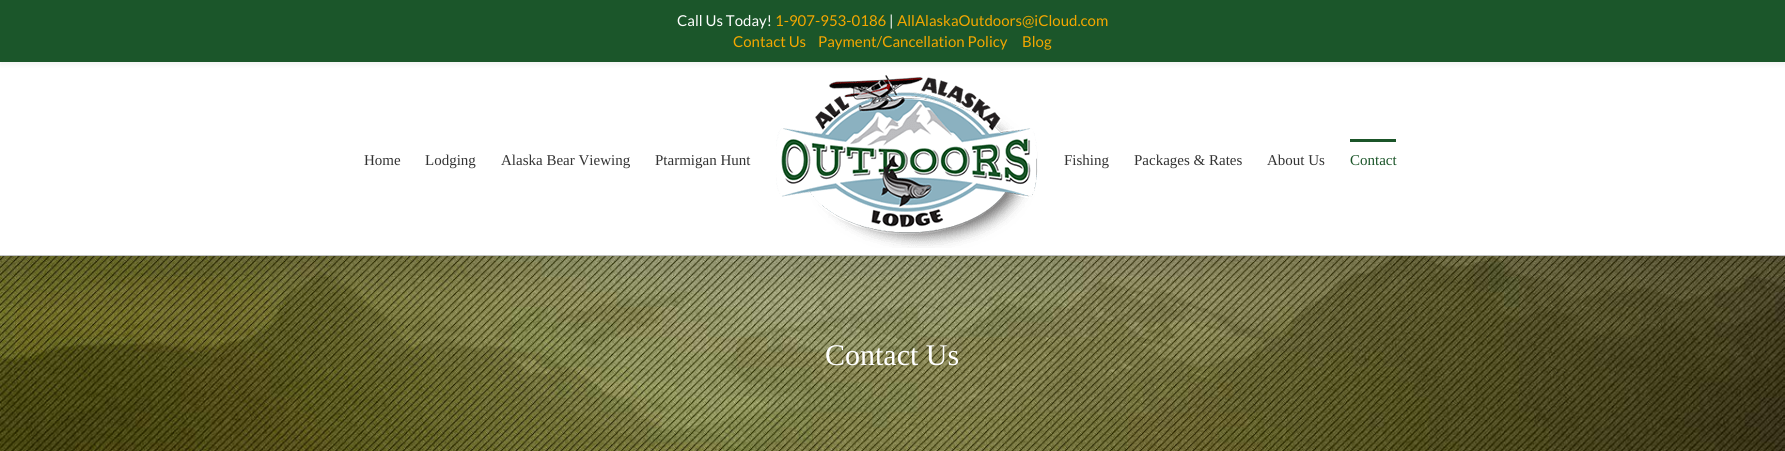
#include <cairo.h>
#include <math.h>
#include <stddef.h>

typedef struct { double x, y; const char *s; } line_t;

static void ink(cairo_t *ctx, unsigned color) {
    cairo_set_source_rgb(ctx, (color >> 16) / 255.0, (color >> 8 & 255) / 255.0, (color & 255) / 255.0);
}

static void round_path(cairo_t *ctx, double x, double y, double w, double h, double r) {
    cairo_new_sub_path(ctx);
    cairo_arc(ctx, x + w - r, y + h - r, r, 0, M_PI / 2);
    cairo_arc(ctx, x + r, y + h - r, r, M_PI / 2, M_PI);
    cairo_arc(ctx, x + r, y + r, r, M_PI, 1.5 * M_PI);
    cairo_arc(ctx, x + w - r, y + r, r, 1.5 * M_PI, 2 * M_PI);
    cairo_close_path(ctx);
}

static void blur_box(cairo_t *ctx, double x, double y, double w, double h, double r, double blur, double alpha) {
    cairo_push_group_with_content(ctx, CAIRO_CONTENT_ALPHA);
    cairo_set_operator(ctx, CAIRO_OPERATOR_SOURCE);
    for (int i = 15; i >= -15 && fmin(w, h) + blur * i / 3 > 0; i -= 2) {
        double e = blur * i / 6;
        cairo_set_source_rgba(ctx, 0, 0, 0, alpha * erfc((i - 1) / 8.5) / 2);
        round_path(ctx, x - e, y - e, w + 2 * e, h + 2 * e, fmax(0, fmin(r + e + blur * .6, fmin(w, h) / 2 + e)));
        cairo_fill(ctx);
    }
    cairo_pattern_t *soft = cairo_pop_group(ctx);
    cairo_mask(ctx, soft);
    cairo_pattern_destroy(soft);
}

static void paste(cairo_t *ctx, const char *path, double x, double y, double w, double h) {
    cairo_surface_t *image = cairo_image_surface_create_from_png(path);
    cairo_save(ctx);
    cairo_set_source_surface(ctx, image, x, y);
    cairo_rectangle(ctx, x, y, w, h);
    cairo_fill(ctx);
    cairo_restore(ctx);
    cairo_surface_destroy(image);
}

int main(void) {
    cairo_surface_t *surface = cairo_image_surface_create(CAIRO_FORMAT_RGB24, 1785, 451);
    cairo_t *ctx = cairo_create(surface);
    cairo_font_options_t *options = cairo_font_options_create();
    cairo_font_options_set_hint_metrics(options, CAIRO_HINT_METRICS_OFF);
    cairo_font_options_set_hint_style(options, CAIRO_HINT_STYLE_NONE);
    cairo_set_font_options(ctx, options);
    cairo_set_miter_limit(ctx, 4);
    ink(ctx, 0xFFFFFF);
    cairo_paint(ctx);
    ink(ctx, 0x000000);
    blur_box(ctx, 0, 3, 1785, 62, 0, 2, 0.05);
    paste(ctx, "media/2.png", 0, 256, 1785, 195);
    ink(ctx, 0xD2D3D4);
    cairo_rectangle(ctx, 0, 255, 1785, 1);
    cairo_fill(ctx);
    cairo_save(ctx);
    cairo_rectangle(ctx, 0, 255, 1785, 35);
    cairo_clip(ctx);
    ink(ctx, 0x000000);
    blur_box(ctx, 2, 74, 1781, 189, 0, 25, 0.14);
    cairo_restore(ctx);
    ink(ctx, 0x1B562A);
    cairo_rectangle(ctx, 0, 0, 1785, 62);
    cairo_fill(ctx);
    cairo_select_font_face(ctx, "Lato", CAIRO_FONT_SLANT_NORMAL, CAIRO_FONT_WEIGHT_NORMAL);
    cairo_set_font_size(ctx, 15);
    ink(ctx, 0xFFFFFF);
    cairo_move_to(ctx, 677, 26);
    cairo_show_text(ctx, "Call Us Today!");
    ink(ctx, 0xF4A700);
    cairo_move_to(ctx, 775, 26);
    cairo_show_text(ctx, "1-907-953-0186");
    ink(ctx, 0xFFFFFF);
    cairo_move_to(ctx, 889, 26);
    cairo_show_text(ctx, "|");
    ink(ctx, 0xF4A700);
    {
        static const line_t items[] = {
            {897, 26, "AllAlaskaOutdoors@iCloud.com"},
            {733, 47, "Contact Us"},
            {818, 47, "Payment/Cancellation Policy"},
            {1022, 47, "Blog"},
        };
        for (size_t i = 0; i < sizeof items / sizeof *items; i++) {
            cairo_move_to(ctx, items[i].x, items[i].y);
            cairo_show_text(ctx, items[i].s);
        }
    }
    cairo_select_font_face(ctx, "Liberation Serif", CAIRO_FONT_SLANT_NORMAL, CAIRO_FONT_WEIGHT_NORMAL);
    ink(ctx, 0x333333);
    {
        static const line_t items[] = {
            {364, 165, "Home"},
            {425, 165, "Lodging"},
            {501, 165, "Alaska Bear Viewing"},
            {655, 165, "Ptarmigan Hunt"},
        };
        for (size_t i = 0; i < sizeof items / sizeof *items; i++) {
            cairo_move_to(ctx, items[i].x, items[i].y);
            cairo_show_text(ctx, items[i].s);
        }
    }
    paste(ctx, "media/1.png", 776, 75, 262, 173);
    {
        static const line_t items[] = {
            {1064, 165, "Fishing"},
            {1134, 165, "Packages & Rates"},
            {1267, 165, "About Us"},
        };
        for (size_t i = 0; i < sizeof items / sizeof *items; i++) {
            cairo_move_to(ctx, items[i].x, items[i].y);
            cairo_show_text(ctx, items[i].s);
        }
    }
    ink(ctx, 0x1B5529);
    cairo_rectangle(ctx, 1350, 139, 46, 3);
    cairo_fill(ctx);
    cairo_move_to(ctx, 1350, 165);
    cairo_show_text(ctx, "Contact");
    cairo_set_font_size(ctx, 30);
    ink(ctx, 0xFFFFFF);
    cairo_move_to(ctx, 825, 365);
    cairo_show_text(ctx, "Contact Us");
    cairo_surface_write_to_png(surface, "image.png");
    cairo_font_options_destroy(options);
    cairo_destroy(ctx);
    cairo_surface_destroy(surface);
    return 0;
}
